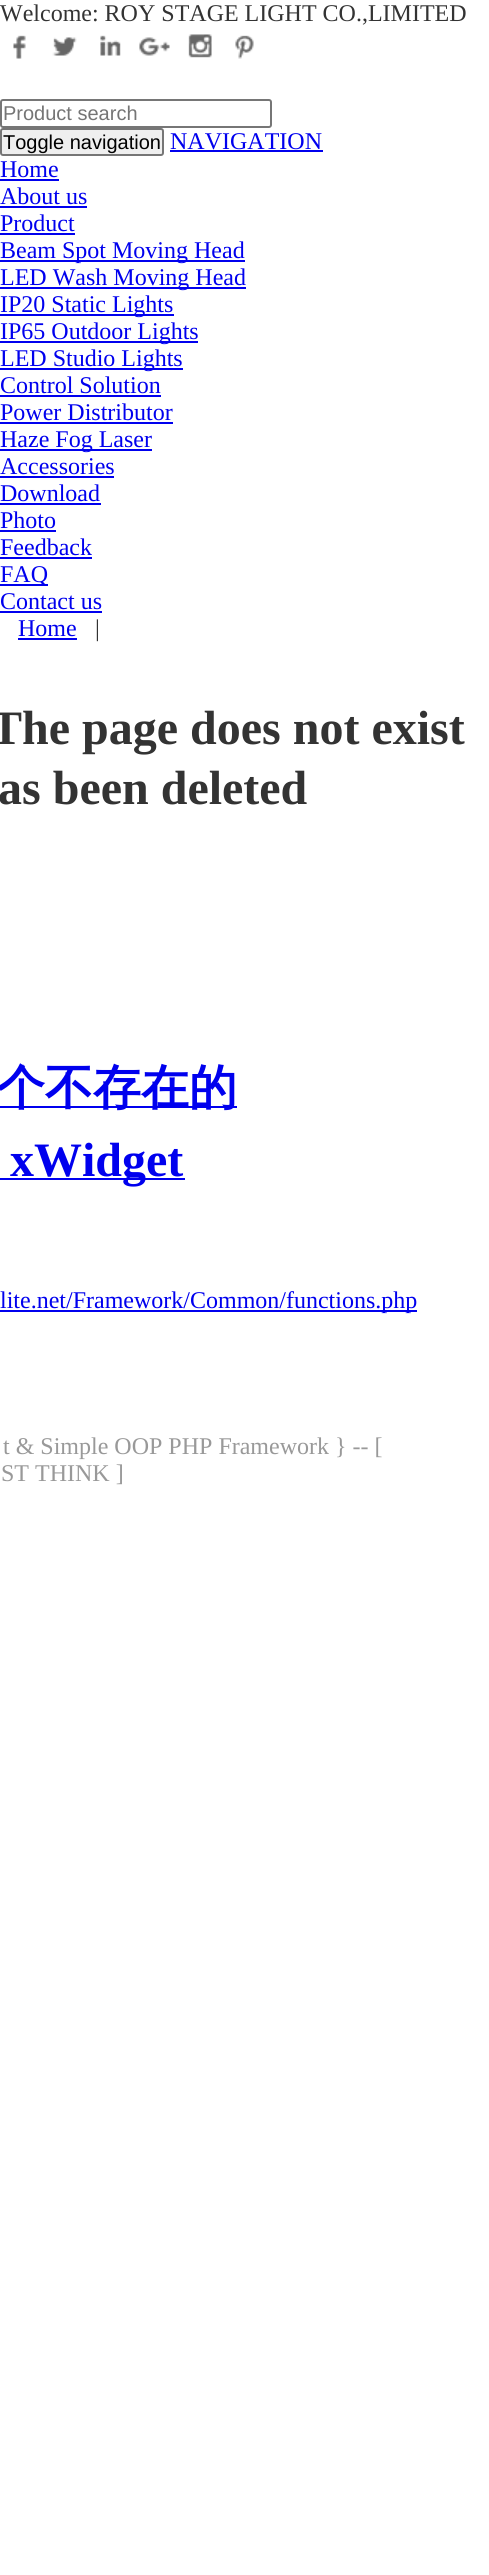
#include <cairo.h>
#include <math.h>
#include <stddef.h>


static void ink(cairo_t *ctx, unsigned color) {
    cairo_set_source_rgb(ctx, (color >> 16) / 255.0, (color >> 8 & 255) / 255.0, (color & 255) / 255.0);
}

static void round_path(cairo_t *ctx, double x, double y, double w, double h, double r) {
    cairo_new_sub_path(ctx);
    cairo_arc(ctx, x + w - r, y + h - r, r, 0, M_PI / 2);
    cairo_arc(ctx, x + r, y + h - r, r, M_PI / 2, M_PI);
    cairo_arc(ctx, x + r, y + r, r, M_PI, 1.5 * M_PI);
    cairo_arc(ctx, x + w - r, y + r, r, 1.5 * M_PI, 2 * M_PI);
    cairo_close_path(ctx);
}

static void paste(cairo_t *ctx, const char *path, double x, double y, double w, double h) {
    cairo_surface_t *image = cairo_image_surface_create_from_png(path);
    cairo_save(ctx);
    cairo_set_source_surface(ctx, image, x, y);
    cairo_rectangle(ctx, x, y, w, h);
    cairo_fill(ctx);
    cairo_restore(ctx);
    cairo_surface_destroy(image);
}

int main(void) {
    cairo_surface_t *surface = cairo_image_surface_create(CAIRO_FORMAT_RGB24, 489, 2575);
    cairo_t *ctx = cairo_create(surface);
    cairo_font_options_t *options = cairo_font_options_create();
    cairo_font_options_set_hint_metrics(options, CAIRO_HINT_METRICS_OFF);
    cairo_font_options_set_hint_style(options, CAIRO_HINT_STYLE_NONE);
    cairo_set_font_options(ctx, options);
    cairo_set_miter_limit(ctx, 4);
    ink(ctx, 0xFFFFFF);
    cairo_paint(ctx);
    cairo_select_font_face(ctx, "Liberation Serif", CAIRO_FONT_SLANT_NORMAL, CAIRO_FONT_WEIGHT_NORMAL);
    cairo_set_font_size(ctx, 24);
    ink(ctx, 0x333333);
    cairo_move_to(ctx, 0, 21);
    cairo_show_text(ctx, "Welcome: ROY STAGE LIGHT CO.,LIMITED");
    paste(ctx, "media/1.png", 13, 35, 13, 24);
    paste(ctx, "media/2.png", 52, 37, 25, 19);
    paste(ctx, "media/3.png", 100, 35, 21, 21);
    paste(ctx, "media/4.png", 139, 37, 31, 19);
    paste(ctx, "media/5.png", 188, 34, 24, 24);
    paste(ctx, "media/6.png", 235, 35, 19, 24);
    round_path(ctx, 1, 100, 270, 27, 2);
    ink(ctx, 0x767676);
    cairo_stroke(ctx);
    cairo_select_font_face(ctx, "Liberation Sans", CAIRO_FONT_SLANT_NORMAL, CAIRO_FONT_WEIGHT_NORMAL);
    cairo_set_font_size(ctx, 20);
    ink(ctx, 0x757575);
    cairo_move_to(ctx, 3, 120);
    cairo_show_text(ctx, "Product search");
    ink(ctx, 0xEFEFEF);
    round_path(ctx, 1, 129, 162, 26, 2);
    cairo_fill_preserve(ctx);
    ink(ctx, 0x767676);
    cairo_stroke(ctx);
    ink(ctx, 0x000000);
    cairo_move_to(ctx, 3, 149);
    cairo_show_text(ctx, "Toggle navigation");
    cairo_select_font_face(ctx, "Liberation Serif", CAIRO_FONT_SLANT_NORMAL, CAIRO_FONT_WEIGHT_NORMAL);
    cairo_set_font_size(ctx, 24);
    ink(ctx, 0x0000EE);
    cairo_move_to(ctx, 170, 149);
    cairo_show_text(ctx, "NAVIGATION");
    cairo_rectangle(ctx, 170, 150, 153, 2);
    cairo_fill(ctx);
    cairo_move_to(ctx, 0, 177);
    cairo_show_text(ctx, "Home");
    cairo_rectangle(ctx, 0, 179, 59, 2);
    cairo_fill(ctx);
    cairo_move_to(ctx, 0, 204);
    cairo_show_text(ctx, "About us");
    cairo_rectangle(ctx, 0, 206, 87, 2);
    cairo_fill(ctx);
    cairo_move_to(ctx, 0, 231);
    cairo_show_text(ctx, "Product");
    cairo_rectangle(ctx, 0, 233, 75, 2);
    cairo_fill(ctx);
    cairo_rectangle(ctx, 0, 260, 245, 2);
    cairo_fill(ctx);
    cairo_move_to(ctx, 0, 258);
    cairo_show_text(ctx, "Beam Spot Moving Head");
    cairo_rectangle(ctx, 0, 287, 246, 2);
    cairo_fill(ctx);
    cairo_move_to(ctx, 0, 285);
    cairo_show_text(ctx, "LED Wash Moving Head");
    cairo_rectangle(ctx, 0, 314, 174, 2);
    cairo_fill(ctx);
    cairo_move_to(ctx, 0, 312);
    cairo_show_text(ctx, "IP20 Static Lights");
    cairo_rectangle(ctx, 0, 341, 198, 2);
    cairo_fill(ctx);
    cairo_move_to(ctx, 0, 339);
    cairo_show_text(ctx, "IP65 Outdoor Lights");
    cairo_rectangle(ctx, 0, 368, 183, 2);
    cairo_fill(ctx);
    cairo_move_to(ctx, 0, 366);
    cairo_show_text(ctx, "LED Studio Lights");
    cairo_move_to(ctx, 0, 393);
    cairo_show_text(ctx, "Control Solution");
    cairo_rectangle(ctx, 0, 395, 161, 2);
    cairo_fill(ctx);
    cairo_move_to(ctx, 0, 420);
    cairo_show_text(ctx, "Power Distributor");
    cairo_rectangle(ctx, 0, 422, 173, 2);
    cairo_fill(ctx);
    cairo_rectangle(ctx, 0, 449, 152, 2);
    cairo_fill(ctx);
    cairo_move_to(ctx, 0, 447);
    cairo_show_text(ctx, "Haze Fog Laser");
    cairo_move_to(ctx, 0, 474);
    cairo_show_text(ctx, "Accessories");
    cairo_rectangle(ctx, 0, 476, 114, 2);
    cairo_fill(ctx);
    cairo_move_to(ctx, 0, 501);
    cairo_show_text(ctx, "Download");
    cairo_rectangle(ctx, 0, 503, 101, 2);
    cairo_fill(ctx);
    cairo_move_to(ctx, 0, 528);
    cairo_show_text(ctx, "Photo");
    cairo_rectangle(ctx, 0, 530, 56, 2);
    cairo_fill(ctx);
    cairo_move_to(ctx, 0, 555);
    cairo_show_text(ctx, "Feedback");
    cairo_rectangle(ctx, 0, 557, 92, 2);
    cairo_fill(ctx);
    cairo_rectangle(ctx, 0, 584, 48, 2);
    cairo_fill(ctx);
    cairo_move_to(ctx, 0, 582);
    cairo_show_text(ctx, "FAQ");
    cairo_move_to(ctx, 0, 609);
    cairo_show_text(ctx, "Contact us");
    cairo_rectangle(ctx, 0, 611, 102, 2);
    cairo_fill(ctx);
    cairo_move_to(ctx, 18, 636);
    cairo_show_text(ctx, "Home");
    cairo_rectangle(ctx, 18, 638, 59, 2);
    cairo_fill(ctx);
    ink(ctx, 0x333333);
    cairo_move_to(ctx, 95, 636);
    cairo_show_text(ctx, "|");
    cairo_select_font_face(ctx, "Liberation Serif", CAIRO_FONT_SLANT_NORMAL, CAIRO_FONT_WEIGHT_BOLD);
    cairo_set_font_size(ctx, 48);
    cairo_move_to(ctx, -10, 744);
    cairo_show_text(ctx, "The page does not exist");
    cairo_move_to(ctx, -2, 804);
    cairo_show_text(ctx, "as been deleted");
    ink(ctx, 0x0000EE);
    cairo_rectangle(ctx, 0, 1106, 237, 2);
    cairo_fill(ctx);
    cairo_select_font_face(ctx, "WenQuanYi Zen Hei", CAIRO_FONT_SLANT_NORMAL, CAIRO_FONT_WEIGHT_BOLD);
    cairo_move_to(ctx, -3, 1104);
    cairo_show_text(ctx, "个不存在的");
    cairo_rectangle(ctx, 0, 1178, 185, 2);
    cairo_fill(ctx);
    cairo_select_font_face(ctx, "Liberation Serif", CAIRO_FONT_SLANT_NORMAL, CAIRO_FONT_WEIGHT_BOLD);
    cairo_move_to(ctx, 10, 1176);
    cairo_show_text(ctx, "xWidget");
    cairo_rectangle(ctx, 0, 1310, 417, 2);
    cairo_fill(ctx);
    cairo_select_font_face(ctx, "Liberation Serif", CAIRO_FONT_SLANT_NORMAL, CAIRO_FONT_WEIGHT_NORMAL);
    cairo_set_font_size(ctx, 24);
    cairo_move_to(ctx, 0, 1308);
    cairo_show_text(ctx, "lite.net/Framework/Common/functions.php");
    ink(ctx, 0x999999);
    cairo_move_to(ctx, 3, 1454);
    cairo_show_text(ctx, "t & Simple OOP PHP Framework } -- [");
    cairo_move_to(ctx, 1, 1481);
    cairo_show_text(ctx, "ST THINK ]");
    cairo_surface_write_to_png(surface, "image.png");
    cairo_font_options_destroy(options);
    cairo_destroy(ctx);
    cairo_surface_destroy(surface);
    return 0;
}
